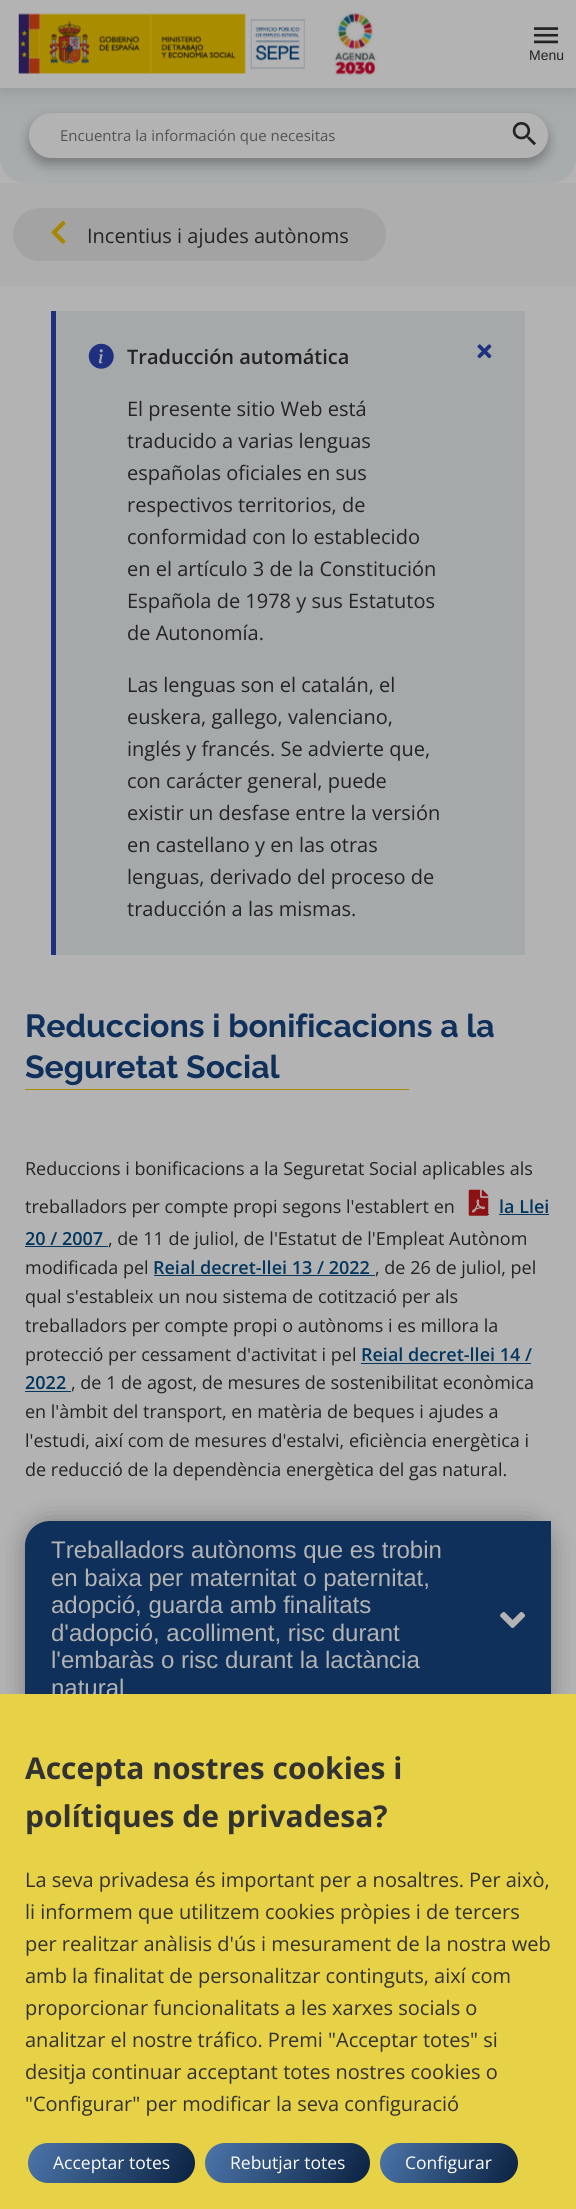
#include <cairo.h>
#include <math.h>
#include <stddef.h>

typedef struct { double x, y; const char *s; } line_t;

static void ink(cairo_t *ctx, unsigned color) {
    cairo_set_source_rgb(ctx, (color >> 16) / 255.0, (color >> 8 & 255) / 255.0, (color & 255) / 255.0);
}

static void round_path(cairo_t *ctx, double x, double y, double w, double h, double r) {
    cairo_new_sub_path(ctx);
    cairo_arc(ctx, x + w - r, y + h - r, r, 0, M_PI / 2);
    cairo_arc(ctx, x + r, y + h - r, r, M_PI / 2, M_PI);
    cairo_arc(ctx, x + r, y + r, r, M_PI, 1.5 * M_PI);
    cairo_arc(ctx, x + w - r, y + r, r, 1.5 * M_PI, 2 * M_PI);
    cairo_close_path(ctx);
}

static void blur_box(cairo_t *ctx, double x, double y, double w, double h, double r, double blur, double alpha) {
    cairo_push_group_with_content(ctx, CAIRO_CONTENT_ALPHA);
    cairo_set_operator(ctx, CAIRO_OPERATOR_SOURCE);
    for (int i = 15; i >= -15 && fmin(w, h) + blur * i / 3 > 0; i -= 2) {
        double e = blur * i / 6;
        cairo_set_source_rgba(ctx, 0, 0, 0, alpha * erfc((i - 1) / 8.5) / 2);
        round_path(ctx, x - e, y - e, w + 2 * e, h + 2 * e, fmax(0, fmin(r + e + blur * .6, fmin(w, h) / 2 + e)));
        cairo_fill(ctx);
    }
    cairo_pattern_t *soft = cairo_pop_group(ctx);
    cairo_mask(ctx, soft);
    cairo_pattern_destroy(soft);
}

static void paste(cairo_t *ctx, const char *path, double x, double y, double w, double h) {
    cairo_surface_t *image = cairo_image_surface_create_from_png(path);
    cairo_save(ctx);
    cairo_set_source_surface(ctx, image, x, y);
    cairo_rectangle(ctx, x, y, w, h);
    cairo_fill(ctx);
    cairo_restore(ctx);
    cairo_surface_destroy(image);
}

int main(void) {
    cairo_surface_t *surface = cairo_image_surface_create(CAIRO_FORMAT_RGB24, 576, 2209);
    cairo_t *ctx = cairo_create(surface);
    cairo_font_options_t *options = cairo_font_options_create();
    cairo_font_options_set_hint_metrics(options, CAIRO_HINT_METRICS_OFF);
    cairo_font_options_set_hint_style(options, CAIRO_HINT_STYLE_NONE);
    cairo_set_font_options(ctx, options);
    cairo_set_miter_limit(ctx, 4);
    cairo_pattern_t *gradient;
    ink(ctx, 0xB3B3B3);
    cairo_paint(ctx);
    ink(ctx, 0xA9ACAD);
    cairo_new_path(ctx);
    cairo_move_to(ctx, 0, 88);
    cairo_line_to(ctx, 576, 88);
    cairo_line_to(ctx, 576, 158);
    cairo_curve_to(ctx, 576, 172, 565, 183, 551, 183);
    cairo_line_to(ctx, 25, 183);
    cairo_curve_to(ctx, 11, 183, 0, 172, 0, 158);
    cairo_close_path(ctx);
    cairo_fill(ctx);
    ink(ctx, 0x000000);
    blur_box(ctx, 29, 119, 519, 45, 22.5, 6, 0.3);
    ink(ctx, 0xB3B3B3);
    round_path(ctx, 29, 113, 519, 45, 22.5);
    cairo_fill(ctx);
    paste(ctx, "media/4.png", 512, 122, 24, 24);
    ink(ctx, 0x000000);
    blur_box(ctx, 0, 0, 576, 85, 0, 12.5, 0.2);
    ink(ctx, 0xB3B3B3);
    cairo_rectangle(ctx, 0, 0, 576, 88);
    cairo_fill(ctx);
    paste(ctx, "media/1.png", 18, 13, 287, 61);
    paste(ctx, "media/2.png", 334, 12, 43, 64);
    paste(ctx, "media/3.png", 534, 27, 24, 17);
    cairo_select_font_face(ctx, "Liberation Sans", CAIRO_FONT_SLANT_NORMAL, CAIRO_FONT_WEIGHT_NORMAL);
    cairo_set_font_size(ctx, 14);
    ink(ctx, 0x232323);
    cairo_move_to(ctx, 529, 60);
    cairo_show_text(ctx, "Menu");
    cairo_select_font_face(ctx, "Open Sans", CAIRO_FONT_SLANT_NORMAL, CAIRO_FONT_WEIGHT_NORMAL);
    cairo_set_font_size(ctx, 15);
    ink(ctx, 0x525252);
    cairo_move_to(ctx, 60, 141);
    cairo_show_text(ctx, "Encuentra la información que necesitas");
    ink(ctx, 0xAEAEAE);
    cairo_rectangle(ctx, 0, 183, 576, 103);
    cairo_fill(ctx);
    ink(ctx, 0xA3A3A3);
    round_path(ctx, 13, 208, 373, 53, 26.5);
    cairo_fill(ctx);
    paste(ctx, "media/5.png", 51, 220, 15, 24);
    cairo_set_font_size(ctx, 20);
    ink(ctx, 0x232323);
    cairo_move_to(ctx, 87, 243);
    cairo_show_text(ctx, "Incentius i ajudes autònoms");
    ink(ctx, 0xA5A9AA);
    cairo_rectangle(ctx, 56, 311, 469, 644);
    cairo_fill(ctx);
    paste(ctx, "media/6.png", 88, 343, 26, 26);
    ink(ctx, 0x1E307F);
    cairo_rectangle(ctx, 51, 311, 5, 644);
    cairo_fill(ctx);
    cairo_select_font_face(ctx, "Open Sans SemiBold", CAIRO_FONT_SLANT_NORMAL, CAIRO_FONT_WEIGHT_NORMAL);
    ink(ctx, 0x232323);
    cairo_move_to(ctx, 127, 364);
    cairo_show_text(ctx, "Traducción automática");
    cairo_select_font_face(ctx, "Open Sans", CAIRO_FONT_SLANT_NORMAL, CAIRO_FONT_WEIGHT_NORMAL);
    {
        static const line_t items[] = {
            {127, 416, "El presente sitio Web está"},
            {127, 448, "traducido a varias lenguas"},
            {127, 480, "españolas oficiales en sus"},
            {127, 512, "respectivos territorios, de"},
            {127, 544, "conformidad con lo establecido"},
            {127, 576, "en el artículo 3 de la Constitución"},
            {127, 608, "Española de 1978 y sus Estatutos"},
            {127, 640, "de Autonomía."},
            {127, 692, "Las lenguas son el catalán, el"},
            {127, 724, "euskera, gallego, valenciano,"},
            {127, 756, "inglés y francés. Se advierte que,"},
            {127, 788, "con carácter general, puede"},
            {127, 820, "existir un desfase entre la versión"},
            {127, 852, "en castellano y en las otras"},
            {127, 884, "lenguas, derivado del proceso de"},
            {127, 916, "traducción a las mismas."},
        };
        for (size_t i = 0; i < sizeof items / sizeof *items; i++) {
            cairo_move_to(ctx, items[i].x, items[i].y);
            cairo_show_text(ctx, items[i].s);
        }
    }
    paste(ctx, "media/7.png", 477, 344, 15, 15);
    cairo_select_font_face(ctx, "Raleway Thin", CAIRO_FONT_SLANT_NORMAL, CAIRO_FONT_WEIGHT_NORMAL);
    cairo_set_font_size(ctx, 32);
    ink(ctx, 0x0F305A);
    cairo_move_to(ctx, 25, 1037);
    cairo_show_text(ctx, "Reduccions i bonificacions a la");
    cairo_move_to(ctx, 25, 1078);
    cairo_show_text(ctx, "Seguretat Social");
    ink(ctx, 0xA98C00);
    cairo_rectangle(ctx, 25, 1089, 384, 1);
    cairo_fill(ctx);
    cairo_select_font_face(ctx, "Open Sans", CAIRO_FONT_SLANT_NORMAL, CAIRO_FONT_WEIGHT_NORMAL);
    cairo_set_font_size(ctx, 18);
    ink(ctx, 0x232323);
    cairo_move_to(ctx, 25, 1175);
    cairo_show_text(ctx, "Reduccions i bonificacions a la Seguretat Social aplicables als");
    cairo_move_to(ctx, 25, 1213);
    cairo_show_text(ctx, "treballadors per compte propi segons l'establert en");
    ink(ctx, 0x01365F);
    cairo_rectangle(ctx, 488, 1214, 1, 1);
    cairo_fill(ctx);
    paste(ctx, "media/8.png", 468, 1189, 21, 27);
    cairo_select_font_face(ctx, "Open Sans SemiBold", CAIRO_FONT_SLANT_NORMAL, CAIRO_FONT_WEIGHT_NORMAL);
    cairo_move_to(ctx, 499, 1213);
    cairo_show_text(ctx, "la Llei");
    cairo_rectangle(ctx, 499, 1214, 50, 1);
    cairo_fill(ctx);
    cairo_move_to(ctx, 25, 1245);
    cairo_show_text(ctx, "20 / 2007");
    cairo_rectangle(ctx, 25, 1246, 83, 1);
    cairo_fill(ctx);
    cairo_select_font_face(ctx, "Open Sans", CAIRO_FONT_SLANT_NORMAL, CAIRO_FONT_WEIGHT_NORMAL);
    ink(ctx, 0x232323);
    cairo_move_to(ctx, 108, 1245);
    cairo_show_text(ctx, ", de 11 de juliol, de l'Estatut de l'Empleat Autònom");
    cairo_move_to(ctx, 25, 1274);
    cairo_show_text(ctx, "modificada pel");
    cairo_select_font_face(ctx, "Open Sans SemiBold", CAIRO_FONT_SLANT_NORMAL, CAIRO_FONT_WEIGHT_NORMAL);
    ink(ctx, 0x01365F);
    cairo_move_to(ctx, 153, 1274);
    cairo_show_text(ctx, "Reial decret-llei 13 / 2022");
    cairo_rectangle(ctx, 154, 1275, 221, 1);
    cairo_fill(ctx);
    cairo_select_font_face(ctx, "Open Sans", CAIRO_FONT_SLANT_NORMAL, CAIRO_FONT_WEIGHT_NORMAL);
    ink(ctx, 0x232323);
    {
        static const line_t items[] = {
            {375, 1274, ", de 26 de juliol, pel"},
            {25, 1303, "qual s'estableix un nou sistema de cotització per als"},
            {25, 1332, "treballadors per compte propi o autònoms i es millora la"},
            {25, 1361, "protecció per cessament d'activitat i pel"},
        };
        for (size_t i = 0; i < sizeof items / sizeof *items; i++) {
            cairo_move_to(ctx, items[i].x, items[i].y);
            cairo_show_text(ctx, items[i].s);
        }
    }
    cairo_select_font_face(ctx, "Open Sans SemiBold", CAIRO_FONT_SLANT_NORMAL, CAIRO_FONT_WEIGHT_NORMAL);
    ink(ctx, 0x01365F);
    cairo_move_to(ctx, 361, 1361);
    cairo_show_text(ctx, "Reial decret-llei 14 /");
    cairo_rectangle(ctx, 361, 1363, 170, 1);
    cairo_fill(ctx);
    cairo_move_to(ctx, 25, 1389);
    cairo_show_text(ctx, "2022");
    cairo_rectangle(ctx, 25, 1391, 46, 1);
    cairo_fill(ctx);
    cairo_select_font_face(ctx, "Open Sans", CAIRO_FONT_SLANT_NORMAL, CAIRO_FONT_WEIGHT_NORMAL);
    ink(ctx, 0x232323);
    {
        static const line_t items[] = {
            {71, 1389, ", de 1 de agost, de mesures de sostenibilitat econòmica"},
            {25, 1418, "en l'àmbit del transport, en matèria de beques i ajudes a"},
            {25, 1447, "l'estudi, així com de mesures d'estalvi, eficiència energètica i"},
            {25, 1476, "de reducció de la dependència energètica del gas natural."},
        };
        for (size_t i = 0; i < sizeof items / sizeof *items; i++) {
            cairo_move_to(ctx, items[i].x, items[i].y);
            cairo_show_text(ctx, items[i].s);
        }
    }
    ink(ctx, 0x000000);
    blur_box(ctx, 25, 1521, 526, 197, 25, 12.5, 0.3);
    ink(ctx, 0x0F305A);
    cairo_new_path(ctx);
    cairo_move_to(ctx, 50, 1521);
    cairo_line_to(ctx, 551, 1521);
    cairo_line_to(ctx, 551, 1693);
    cairo_curve_to(ctx, 551, 1707, 540, 1718, 526, 1718);
    cairo_line_to(ctx, 25, 1718);
    cairo_line_to(ctx, 25, 1546);
    cairo_curve_to(ctx, 25, 1532, 36, 1521, 50, 1521);
    cairo_close_path(ctx);
    cairo_fill(ctx);
    cairo_select_font_face(ctx, "Liberation Sans", CAIRO_FONT_SLANT_NORMAL, CAIRO_FONT_WEIGHT_NORMAL);
    cairo_set_font_size(ctx, 24);
    ink(ctx, 0xB3B3B3);
    {
        static const line_t items[] = {
            {51, 1558, "Treballadors autònoms que es trobin"},
            {51, 1586, "en baixa per maternitat o paternitat,"},
            {51, 1613, "adopció, guarda amb finalitats"},
            {51, 1641, "d'adopció, acolliment, risc durant"},
            {51, 1668, "l'embaràs o risc durant la lactància"},
            {51, 1696, "natural"},
        };
        for (size_t i = 0; i < sizeof items / sizeof *items; i++) {
            cairo_move_to(ctx, items[i].x, items[i].y);
            cairo_show_text(ctx, items[i].s);
        }
    }
    paste(ctx, "media/9.png", 500, 1612, 26, 16);
    ink(ctx, 0xE6D147);
    cairo_rectangle(ctx, 0, 1694, 576, 515);
    cairo_fill(ctx);
    cairo_select_font_face(ctx, "Open Sans", CAIRO_FONT_SLANT_NORMAL, CAIRO_FONT_WEIGHT_BOLD);
    cairo_set_font_size(ctx, 30);
    ink(ctx, 0x323232);
    cairo_move_to(ctx, 25, 1779);
    cairo_show_text(ctx, "Accepta nostres cookies i");
    cairo_move_to(ctx, 25, 1827);
    cairo_show_text(ctx, "polítiques de privadesa?");
    cairo_select_font_face(ctx, "Open Sans", CAIRO_FONT_SLANT_NORMAL, CAIRO_FONT_WEIGHT_NORMAL);
    cairo_set_font_size(ctx, 20);
    {
        static const line_t items[] = {
            {25, 1887, "La seva privadesa és important per a nosaltres. Per això,"},
            {25, 1919, "li informem que utilitzem cookies pròpies i de tercers"},
            {25, 1951, "per realitzar anàlisis d'ús i mesurament de la nostra web"},
            {25, 1983, "amb la finalitat de personalitzar continguts, així com"},
            {25, 2015, "proporcionar funcionalitats a les xarxes socials o"},
            {25, 2047, "analitzar el nostre tráfico. Premi \"Acceptar totes\" si"},
            {25, 2079, "desitja continuar acceptant totes nostres cookies o"},
            {25, 2111, "\"Configurar\" per modificar la seva configuració"},
        };
        for (size_t i = 0; i < sizeof items / sizeof *items; i++) {
            cairo_move_to(ctx, items[i].x, items[i].y);
            cairo_show_text(ctx, items[i].s);
        }
    }
    gradient = cairo_pattern_create_linear(32, 2131, 190, 2194);
    cairo_pattern_add_color_stop_rgba(gradient, 0, 0.298, 0.459, 0.667, 1);
    cairo_pattern_add_color_stop_rgba(gradient, 1, 0.043, 0.133, 0.255, 1);
    cairo_set_source(ctx, gradient);
    cairo_pattern_destroy(gradient);
    round_path(ctx, 28, 2143, 167, 40, 20);
    cairo_fill(ctx);
    cairo_set_font_size(ctx, 17.5);
    ink(ctx, 0xFFFFFF);
    cairo_move_to(ctx, 53, 2169);
    cairo_show_text(ctx, "Acceptar totes");
    gradient = cairo_pattern_create_linear(210, 2131, 365, 2194);
    cairo_pattern_add_color_stop_rgba(gradient, 0, 0.298, 0.459, 0.667, 1);
    cairo_pattern_add_color_stop_rgba(gradient, 1, 0.043, 0.133, 0.255, 1);
    cairo_set_source(ctx, gradient);
    cairo_pattern_destroy(gradient);
    round_path(ctx, 205, 2143, 165, 40, 20);
    cairo_fill(ctx);
    ink(ctx, 0xFFFFFF);
    cairo_move_to(ctx, 230, 2169);
    cairo_show_text(ctx, "Rebutjar totes");
    gradient = cairo_pattern_create_linear(383, 2136, 515, 2189);
    cairo_pattern_add_color_stop_rgba(gradient, 0, 0.298, 0.459, 0.667, 1);
    cairo_pattern_add_color_stop_rgba(gradient, 1, 0.043, 0.133, 0.255, 1);
    cairo_set_source(ctx, gradient);
    cairo_pattern_destroy(gradient);
    round_path(ctx, 380, 2143, 138, 40, 20);
    cairo_fill(ctx);
    ink(ctx, 0xFFFFFF);
    cairo_move_to(ctx, 405, 2169);
    cairo_show_text(ctx, "Configurar");
    cairo_surface_write_to_png(surface, "image.png");
    cairo_font_options_destroy(options);
    cairo_destroy(ctx);
    cairo_surface_destroy(surface);
    return 0;
}
